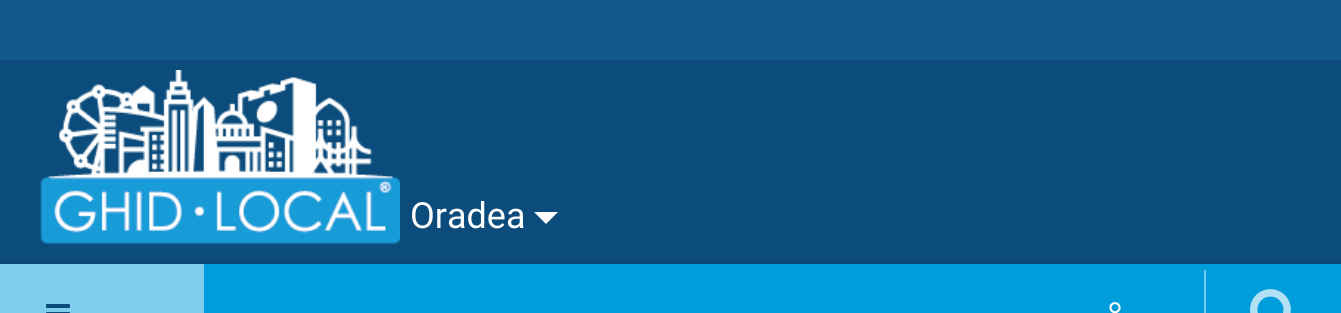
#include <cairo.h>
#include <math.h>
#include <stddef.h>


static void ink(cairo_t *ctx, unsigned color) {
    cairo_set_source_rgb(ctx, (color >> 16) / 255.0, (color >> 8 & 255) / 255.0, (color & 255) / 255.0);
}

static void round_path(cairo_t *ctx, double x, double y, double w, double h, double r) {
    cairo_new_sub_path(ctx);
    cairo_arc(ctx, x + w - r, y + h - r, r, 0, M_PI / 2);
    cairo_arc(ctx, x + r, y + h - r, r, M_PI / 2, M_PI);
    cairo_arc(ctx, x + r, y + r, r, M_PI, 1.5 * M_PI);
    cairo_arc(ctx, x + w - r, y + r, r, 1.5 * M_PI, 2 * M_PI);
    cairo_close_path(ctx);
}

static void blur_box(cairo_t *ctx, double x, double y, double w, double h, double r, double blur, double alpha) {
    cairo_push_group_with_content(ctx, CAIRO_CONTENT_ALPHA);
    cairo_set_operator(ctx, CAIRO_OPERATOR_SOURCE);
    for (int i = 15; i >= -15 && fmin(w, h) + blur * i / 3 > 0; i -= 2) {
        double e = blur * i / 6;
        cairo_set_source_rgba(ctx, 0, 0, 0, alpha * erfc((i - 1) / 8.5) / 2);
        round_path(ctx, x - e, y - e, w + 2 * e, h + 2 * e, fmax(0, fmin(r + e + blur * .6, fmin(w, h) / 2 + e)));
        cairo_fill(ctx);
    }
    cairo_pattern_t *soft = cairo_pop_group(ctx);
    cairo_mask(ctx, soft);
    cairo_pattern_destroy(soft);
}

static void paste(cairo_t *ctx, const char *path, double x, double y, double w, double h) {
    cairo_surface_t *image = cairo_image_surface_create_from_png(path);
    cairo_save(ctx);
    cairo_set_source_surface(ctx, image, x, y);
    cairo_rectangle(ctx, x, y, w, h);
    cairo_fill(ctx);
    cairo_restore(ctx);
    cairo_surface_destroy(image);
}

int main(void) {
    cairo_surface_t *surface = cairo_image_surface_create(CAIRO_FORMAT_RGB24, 1341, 313);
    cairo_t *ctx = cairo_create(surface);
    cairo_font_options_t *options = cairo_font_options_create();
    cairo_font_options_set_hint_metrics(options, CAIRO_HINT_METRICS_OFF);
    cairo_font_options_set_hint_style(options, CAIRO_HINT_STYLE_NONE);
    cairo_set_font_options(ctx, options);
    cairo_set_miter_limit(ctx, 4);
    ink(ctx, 0x0B4C7C);
    cairo_paint(ctx);
    ink(ctx, 0x11588D);
    cairo_rectangle(ctx, 0, 0, 1341, 60);
    cairo_fill(ctx);
    paste(ctx, "media/1.png", 40, 70, 360, 174);
    cairo_select_font_face(ctx, "Roboto", CAIRO_FONT_SLANT_NORMAL, CAIRO_FONT_WEIGHT_NORMAL);
    cairo_set_font_size(ctx, 36);
    ink(ctx, 0xFFFFFF);
    cairo_move_to(ctx, 410, 228);
    cairo_show_text(ctx, "Oradea");
    cairo_new_path(ctx);
    cairo_move_to(ctx, 534, 212);
    cairo_line_to(ctx, 558, 212);
    cairo_line_to(ctx, 546, 224);
    cairo_close_path(ctx);
    cairo_fill(ctx);
    ink(ctx, 0x000000);
    blur_box(ctx, -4, 266, 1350, 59, 0, 4, 0.3);
    ink(ctx, 0x009DDC);
    cairo_rectangle(ctx, 204, 264, 1137, 49);
    cairo_fill(ctx);
    ink(ctx, 0x80CEEE);
    cairo_rectangle(ctx, 0, 264, 204, 49);
    cairo_fill(ctx);
    paste(ctx, "media/2.png", 46, 304, 24, 9);
    ink(ctx, 0x70C8EB);
    cairo_rectangle(ctx, 1204, 270, 2, 43);
    cairo_fill(ctx);
    cairo_select_font_face(ctx, "Liberation Sans", CAIRO_FONT_SLANT_NORMAL, CAIRO_FONT_WEIGHT_NORMAL);
    cairo_set_font_size(ctx, 40);
    ink(ctx, 0xFFFFFF);
    cairo_move_to(ctx, 1107, 330);
    cairo_show_text(ctx, "°");
    paste(ctx, "media/3.png", 1250, 289, 41, 24);
    cairo_surface_write_to_png(surface, "image.png");
    cairo_font_options_destroy(options);
    cairo_destroy(ctx);
    cairo_surface_destroy(surface);
    return 0;
}
